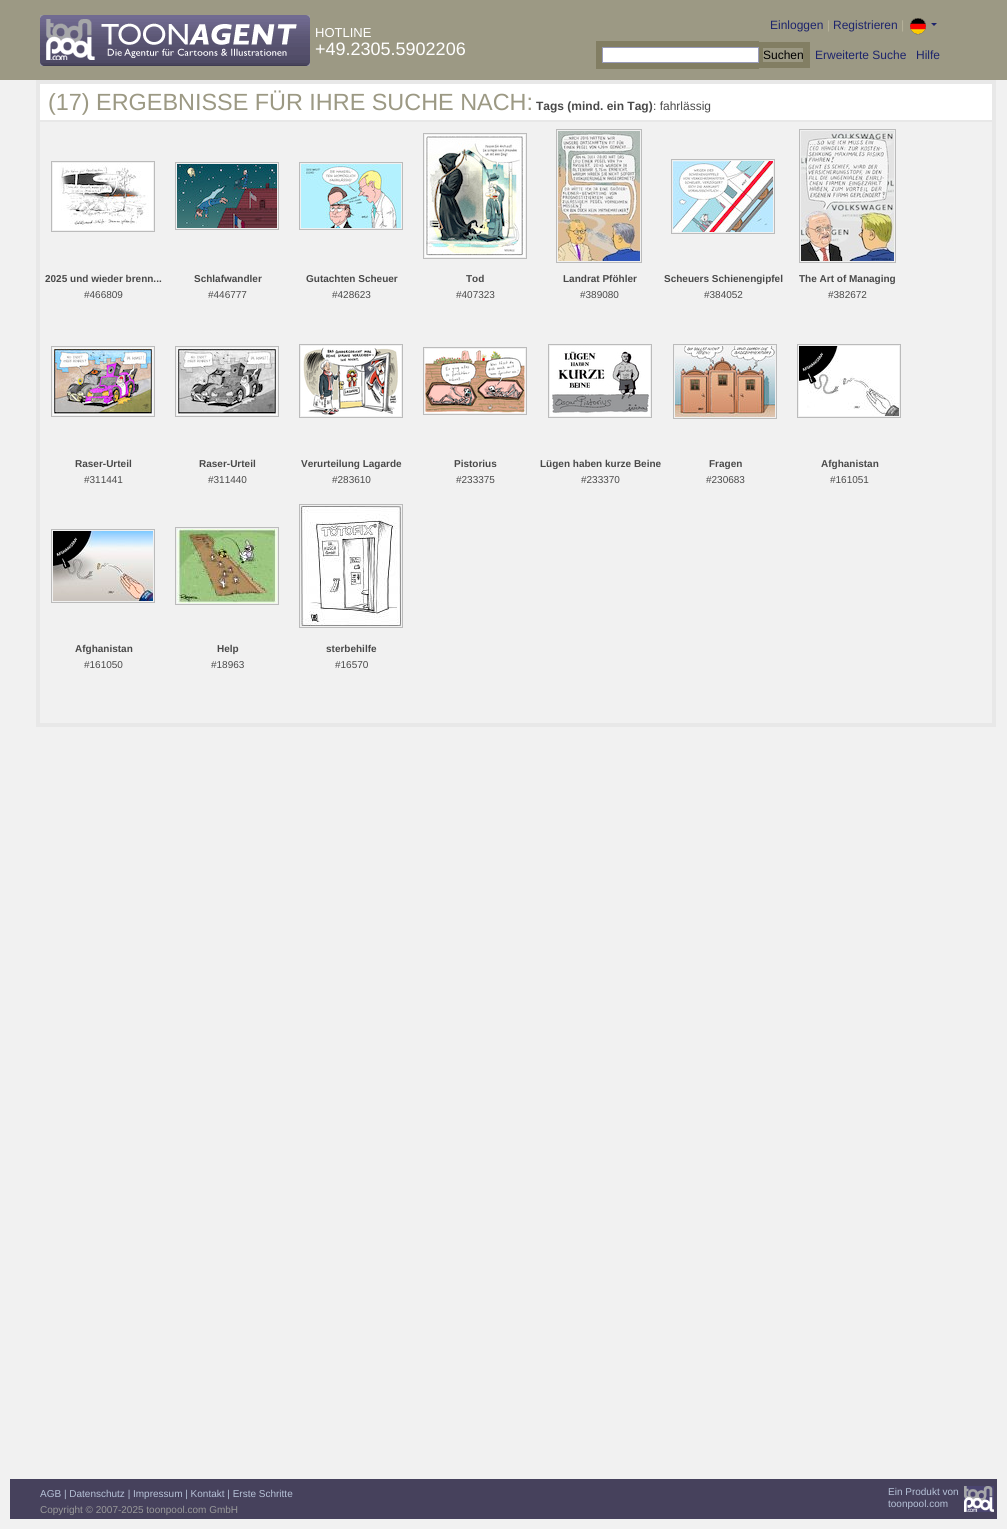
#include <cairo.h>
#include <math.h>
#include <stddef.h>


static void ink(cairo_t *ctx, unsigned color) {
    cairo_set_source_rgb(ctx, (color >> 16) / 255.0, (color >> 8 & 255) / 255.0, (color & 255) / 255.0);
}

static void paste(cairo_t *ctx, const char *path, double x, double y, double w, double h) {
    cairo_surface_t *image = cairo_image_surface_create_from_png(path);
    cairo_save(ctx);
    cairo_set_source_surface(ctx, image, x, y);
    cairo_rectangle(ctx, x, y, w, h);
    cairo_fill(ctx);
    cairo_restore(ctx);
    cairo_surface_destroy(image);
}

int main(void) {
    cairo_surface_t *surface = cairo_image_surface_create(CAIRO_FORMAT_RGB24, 1007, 1529);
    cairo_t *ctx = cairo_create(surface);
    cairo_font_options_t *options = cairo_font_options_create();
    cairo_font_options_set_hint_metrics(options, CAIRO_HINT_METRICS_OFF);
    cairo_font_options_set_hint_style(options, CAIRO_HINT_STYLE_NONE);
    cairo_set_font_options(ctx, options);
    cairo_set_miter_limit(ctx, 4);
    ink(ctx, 0xF1F1F1);
    cairo_paint(ctx);
    ink(ctx, 0x9C9984);
    cairo_rectangle(ctx, 0, 0, 1007, 80);
    cairo_fill(ctx);
    paste(ctx, "media/1.png", 40, 15, 270, 51);
    cairo_select_font_face(ctx, "Liberation Sans", CAIRO_FONT_SLANT_NORMAL, CAIRO_FONT_WEIGHT_NORMAL);
    cairo_set_font_size(ctx, 13);
    ink(ctx, 0xFFFFFF);
    cairo_move_to(ctx, 315, 37);
    cairo_show_text(ctx, "HOTLINE");
    cairo_set_font_size(ctx, 18);
    cairo_move_to(ctx, 315, 55);
    cairo_show_text(ctx, "+49.2305.5902206");
    cairo_set_font_size(ctx, 12);
    ink(ctx, 0x1D246C);
    cairo_move_to(ctx, 770, 29);
    cairo_show_text(ctx, "Einloggen");
    ink(ctx, 0xB5B29B);
    cairo_move_to(ctx, 827, 29);
    cairo_show_text(ctx, "|");
    ink(ctx, 0x1D246C);
    cairo_move_to(ctx, 833, 29);
    cairo_show_text(ctx, "Registrieren");
    ink(ctx, 0xB5B29B);
    cairo_move_to(ctx, 901, 29);
    cairo_show_text(ctx, "|");
    paste(ctx, "media/2.png", 910, 18, 16, 17);
    ink(ctx, 0x1D246C);
    cairo_new_path(ctx);
    cairo_move_to(ctx, 931, 23);
    cairo_line_to(ctx, 937, 23);
    cairo_line_to(ctx, 934, 26);
    cairo_close_path(ctx);
    cairo_fill(ctx);
    ink(ctx, 0x827E63);
    cairo_rectangle(ctx, 596, 41, 163, 28);
    cairo_fill(ctx);
    cairo_rectangle(ctx, 759, 42, 51, 26);
    cairo_fill(ctx);
    ink(ctx, 0xFFFFFF);
    cairo_rectangle(ctx, 602.5, 47.5, 156, 15);
    cairo_fill_preserve(ctx);
    ink(ctx, 0x999CBB);
    cairo_set_line_width(ctx, 1);
    cairo_stroke(ctx);
    ink(ctx, 0x9C9984);
    cairo_rectangle(ctx, 763, 48, 40, 14);
    cairo_fill(ctx);
    ink(ctx, 0x000000);
    cairo_move_to(ctx, 763, 59);
    cairo_show_text(ctx, "Suchen");
    ink(ctx, 0x1D246C);
    cairo_move_to(ctx, 815, 59);
    cairo_show_text(ctx, "Erweiterte Suche");
    cairo_move_to(ctx, 916, 59);
    cairo_show_text(ctx, "Hilfe");
    cairo_rectangle(ctx, 38, 82, 956, 643);
    ink(ctx, 0xE8E8E8);
    cairo_set_line_width(ctx, 4);
    cairo_stroke(ctx);
    ink(ctx, 0xFFFFFF);
    cairo_rectangle(ctx, 40, 84, 952, 36);
    cairo_fill(ctx);
    cairo_set_font_size(ctx, 23.4);
    ink(ctx, 0x9C9984);
    cairo_move_to(ctx, 48, 110);
    cairo_show_text(ctx, "(17) ERGEBNISSE FÜR IHRE SUCHE NACH:");
    cairo_select_font_face(ctx, "Liberation Sans", CAIRO_FONT_SLANT_NORMAL, CAIRO_FONT_WEIGHT_BOLD);
    cairo_set_font_size(ctx, 12);
    ink(ctx, 0x494949);
    cairo_move_to(ctx, 536, 110);
    cairo_show_text(ctx, "Tags (mind. ein Tag)");
    cairo_select_font_face(ctx, "Liberation Sans", CAIRO_FONT_SLANT_NORMAL, CAIRO_FONT_WEIGHT_NORMAL);
    cairo_move_to(ctx, 653, 110);
    cairo_show_text(ctx, ": fahrlässig");
    ink(ctx, 0xE8E8E8);
    cairo_rectangle(ctx, 40, 120, 952, 2);
    cairo_fill(ctx);
    cairo_rectangle(ctx, 51.5, 161.5, 103, 70);
    ink(ctx, 0xBBBBBB);
    cairo_set_line_width(ctx, 1);
    cairo_stroke(ctx);
    paste(ctx, "media/3.png", 53, 163, 100, 67);
    cairo_select_font_face(ctx, "Liberation Sans", CAIRO_FONT_SLANT_NORMAL, CAIRO_FONT_WEIGHT_BOLD);
    cairo_set_font_size(ctx, 10);
    ink(ctx, 0x494949);
    cairo_move_to(ctx, 45, 282);
    cairo_show_text(ctx, "2025 und wieder brenn...");
    cairo_select_font_face(ctx, "Liberation Sans", CAIRO_FONT_SLANT_NORMAL, CAIRO_FONT_WEIGHT_NORMAL);
    cairo_move_to(ctx, 84, 298);
    cairo_show_text(ctx, "#466809");
    cairo_rectangle(ctx, 175.5, 162.5, 103, 67);
    ink(ctx, 0xBBBBBB);
    cairo_stroke(ctx);
    paste(ctx, "media/4.png", 177, 164, 100, 64);
    cairo_select_font_face(ctx, "Liberation Sans", CAIRO_FONT_SLANT_NORMAL, CAIRO_FONT_WEIGHT_BOLD);
    ink(ctx, 0x494949);
    cairo_move_to(ctx, 194, 282);
    cairo_show_text(ctx, "Schlafwandler");
    cairo_select_font_face(ctx, "Liberation Sans", CAIRO_FONT_SLANT_NORMAL, CAIRO_FONT_WEIGHT_NORMAL);
    cairo_move_to(ctx, 208, 298);
    cairo_show_text(ctx, "#446777");
    cairo_rectangle(ctx, 299.5, 162.5, 103, 67);
    ink(ctx, 0xBBBBBB);
    cairo_stroke(ctx);
    paste(ctx, "media/5.png", 301, 164, 100, 64);
    cairo_select_font_face(ctx, "Liberation Sans", CAIRO_FONT_SLANT_NORMAL, CAIRO_FONT_WEIGHT_BOLD);
    ink(ctx, 0x494949);
    cairo_move_to(ctx, 306, 282);
    cairo_show_text(ctx, "Gutachten Scheuer");
    cairo_select_font_face(ctx, "Liberation Sans", CAIRO_FONT_SLANT_NORMAL, CAIRO_FONT_WEIGHT_NORMAL);
    cairo_move_to(ctx, 332, 298);
    cairo_show_text(ctx, "#428623");
    cairo_rectangle(ctx, 423.5, 133.5, 103, 125);
    ink(ctx, 0xBBBBBB);
    cairo_stroke(ctx);
    paste(ctx, "media/6.png", 425, 135, 100, 122);
    cairo_select_font_face(ctx, "Liberation Sans", CAIRO_FONT_SLANT_NORMAL, CAIRO_FONT_WEIGHT_BOLD);
    ink(ctx, 0x494949);
    cairo_move_to(ctx, 466, 282);
    cairo_show_text(ctx, "Tod");
    cairo_select_font_face(ctx, "Liberation Sans", CAIRO_FONT_SLANT_NORMAL, CAIRO_FONT_WEIGHT_NORMAL);
    cairo_move_to(ctx, 456, 298);
    cairo_show_text(ctx, "#407323");
    cairo_rectangle(ctx, 556.5, 129.5, 85, 133);
    ink(ctx, 0xBBBBBB);
    cairo_stroke(ctx);
    paste(ctx, "media/7.png", 558, 131, 82, 130);
    cairo_select_font_face(ctx, "Liberation Sans", CAIRO_FONT_SLANT_NORMAL, CAIRO_FONT_WEIGHT_BOLD);
    ink(ctx, 0x494949);
    cairo_move_to(ctx, 563, 282);
    cairo_show_text(ctx, "Landrat Pföhler");
    cairo_select_font_face(ctx, "Liberation Sans", CAIRO_FONT_SLANT_NORMAL, CAIRO_FONT_WEIGHT_NORMAL);
    cairo_move_to(ctx, 580, 298);
    cairo_show_text(ctx, "#389080");
    cairo_rectangle(ctx, 671.5, 159.5, 103, 74);
    ink(ctx, 0xBBBBBB);
    cairo_stroke(ctx);
    paste(ctx, "media/8.png", 673, 161, 100, 71);
    cairo_select_font_face(ctx, "Liberation Sans", CAIRO_FONT_SLANT_NORMAL, CAIRO_FONT_WEIGHT_BOLD);
    ink(ctx, 0x494949);
    cairo_move_to(ctx, 664, 282);
    cairo_show_text(ctx, "Scheuers Schienengipfel");
    cairo_select_font_face(ctx, "Liberation Sans", CAIRO_FONT_SLANT_NORMAL, CAIRO_FONT_WEIGHT_NORMAL);
    cairo_move_to(ctx, 704, 298);
    cairo_show_text(ctx, "#384052");
    cairo_rectangle(ctx, 799.5, 129.5, 96, 133);
    ink(ctx, 0xBBBBBB);
    cairo_stroke(ctx);
    paste(ctx, "media/9.png", 801, 131, 93, 130);
    cairo_select_font_face(ctx, "Liberation Sans", CAIRO_FONT_SLANT_NORMAL, CAIRO_FONT_WEIGHT_BOLD);
    ink(ctx, 0x494949);
    cairo_move_to(ctx, 799, 282);
    cairo_show_text(ctx, "The Art of Managing");
    cairo_select_font_face(ctx, "Liberation Sans", CAIRO_FONT_SLANT_NORMAL, CAIRO_FONT_WEIGHT_NORMAL);
    cairo_move_to(ctx, 828, 298);
    cairo_show_text(ctx, "#382672");
    cairo_rectangle(ctx, 51.5, 346.5, 103, 70);
    ink(ctx, 0xBBBBBB);
    cairo_stroke(ctx);
    paste(ctx, "media/10.png", 53, 348, 100, 67);
    cairo_select_font_face(ctx, "Liberation Sans", CAIRO_FONT_SLANT_NORMAL, CAIRO_FONT_WEIGHT_BOLD);
    ink(ctx, 0x494949);
    cairo_move_to(ctx, 75, 467);
    cairo_show_text(ctx, "Raser-Urteil");
    cairo_select_font_face(ctx, "Liberation Sans", CAIRO_FONT_SLANT_NORMAL, CAIRO_FONT_WEIGHT_NORMAL);
    cairo_move_to(ctx, 84, 483);
    cairo_show_text(ctx, "#311441");
    cairo_rectangle(ctx, 175.5, 346.5, 103, 70);
    ink(ctx, 0xBBBBBB);
    cairo_stroke(ctx);
    paste(ctx, "media/11.png", 177, 348, 100, 67);
    cairo_select_font_face(ctx, "Liberation Sans", CAIRO_FONT_SLANT_NORMAL, CAIRO_FONT_WEIGHT_BOLD);
    ink(ctx, 0x494949);
    cairo_move_to(ctx, 199, 467);
    cairo_show_text(ctx, "Raser-Urteil");
    cairo_select_font_face(ctx, "Liberation Sans", CAIRO_FONT_SLANT_NORMAL, CAIRO_FONT_WEIGHT_NORMAL);
    cairo_move_to(ctx, 208, 483);
    cairo_show_text(ctx, "#311440");
    cairo_rectangle(ctx, 299.5, 344.5, 103, 73);
    ink(ctx, 0xBBBBBB);
    cairo_stroke(ctx);
    paste(ctx, "media/12.png", 301, 346, 100, 70);
    cairo_select_font_face(ctx, "Liberation Sans", CAIRO_FONT_SLANT_NORMAL, CAIRO_FONT_WEIGHT_BOLD);
    ink(ctx, 0x494949);
    cairo_move_to(ctx, 301, 467);
    cairo_show_text(ctx, "Verurteilung Lagarde");
    cairo_select_font_face(ctx, "Liberation Sans", CAIRO_FONT_SLANT_NORMAL, CAIRO_FONT_WEIGHT_NORMAL);
    cairo_move_to(ctx, 332, 483);
    cairo_show_text(ctx, "#283610");
    cairo_rectangle(ctx, 423.5, 347.5, 103, 67);
    ink(ctx, 0xBBBBBB);
    cairo_stroke(ctx);
    paste(ctx, "media/13.png", 425, 349, 100, 64);
    cairo_select_font_face(ctx, "Liberation Sans", CAIRO_FONT_SLANT_NORMAL, CAIRO_FONT_WEIGHT_BOLD);
    ink(ctx, 0x494949);
    cairo_move_to(ctx, 454, 467);
    cairo_show_text(ctx, "Pistorius");
    cairo_select_font_face(ctx, "Liberation Sans", CAIRO_FONT_SLANT_NORMAL, CAIRO_FONT_WEIGHT_NORMAL);
    cairo_move_to(ctx, 456, 483);
    cairo_show_text(ctx, "#233375");
    cairo_rectangle(ctx, 548.5, 344.5, 103, 73);
    ink(ctx, 0xBBBBBB);
    cairo_stroke(ctx);
    paste(ctx, "media/14.png", 550, 346, 100, 70);
    cairo_select_font_face(ctx, "Liberation Sans", CAIRO_FONT_SLANT_NORMAL, CAIRO_FONT_WEIGHT_BOLD);
    ink(ctx, 0x494949);
    cairo_move_to(ctx, 540, 467);
    cairo_show_text(ctx, "Lügen haben kurze Beine");
    cairo_select_font_face(ctx, "Liberation Sans", CAIRO_FONT_SLANT_NORMAL, CAIRO_FONT_WEIGHT_NORMAL);
    cairo_move_to(ctx, 581, 483);
    cairo_show_text(ctx, "#233370");
    cairo_rectangle(ctx, 673.5, 344.5, 103, 74);
    ink(ctx, 0xBBBBBB);
    cairo_stroke(ctx);
    paste(ctx, "media/15.png", 675, 346, 100, 71);
    cairo_select_font_face(ctx, "Liberation Sans", CAIRO_FONT_SLANT_NORMAL, CAIRO_FONT_WEIGHT_BOLD);
    ink(ctx, 0x494949);
    cairo_move_to(ctx, 709, 467);
    cairo_show_text(ctx, "Fragen");
    cairo_select_font_face(ctx, "Liberation Sans", CAIRO_FONT_SLANT_NORMAL, CAIRO_FONT_WEIGHT_NORMAL);
    cairo_move_to(ctx, 706, 483);
    cairo_show_text(ctx, "#230683");
    cairo_rectangle(ctx, 797.5, 344.5, 103, 73);
    ink(ctx, 0xBBBBBB);
    cairo_stroke(ctx);
    paste(ctx, "media/16.png", 799, 346, 100, 70);
    cairo_select_font_face(ctx, "Liberation Sans", CAIRO_FONT_SLANT_NORMAL, CAIRO_FONT_WEIGHT_BOLD);
    ink(ctx, 0x494949);
    cairo_move_to(ctx, 821, 467);
    cairo_show_text(ctx, "Afghanistan");
    cairo_select_font_face(ctx, "Liberation Sans", CAIRO_FONT_SLANT_NORMAL, CAIRO_FONT_WEIGHT_NORMAL);
    cairo_move_to(ctx, 830, 483);
    cairo_show_text(ctx, "#161051");
    cairo_rectangle(ctx, 51.5, 529.5, 103, 73);
    ink(ctx, 0xBBBBBB);
    cairo_stroke(ctx);
    paste(ctx, "media/17.png", 53, 531, 100, 70);
    cairo_select_font_face(ctx, "Liberation Sans", CAIRO_FONT_SLANT_NORMAL, CAIRO_FONT_WEIGHT_BOLD);
    ink(ctx, 0x494949);
    cairo_move_to(ctx, 75, 652);
    cairo_show_text(ctx, "Afghanistan");
    cairo_select_font_face(ctx, "Liberation Sans", CAIRO_FONT_SLANT_NORMAL, CAIRO_FONT_WEIGHT_NORMAL);
    cairo_move_to(ctx, 84, 668);
    cairo_show_text(ctx, "#161050");
    cairo_rectangle(ctx, 175.5, 527.5, 103, 77);
    ink(ctx, 0xBBBBBB);
    cairo_stroke(ctx);
    paste(ctx, "media/18.png", 177, 529, 100, 74);
    cairo_select_font_face(ctx, "Liberation Sans", CAIRO_FONT_SLANT_NORMAL, CAIRO_FONT_WEIGHT_BOLD);
    ink(ctx, 0x494949);
    cairo_move_to(ctx, 217, 652);
    cairo_show_text(ctx, "Help");
    cairo_select_font_face(ctx, "Liberation Sans", CAIRO_FONT_SLANT_NORMAL, CAIRO_FONT_WEIGHT_NORMAL);
    cairo_move_to(ctx, 211, 668);
    cairo_show_text(ctx, "#18963");
    cairo_rectangle(ctx, 299.5, 504.5, 103, 123);
    ink(ctx, 0xBBBBBB);
    cairo_stroke(ctx);
    paste(ctx, "media/19.png", 301, 506, 100, 120);
    cairo_select_font_face(ctx, "Liberation Sans", CAIRO_FONT_SLANT_NORMAL, CAIRO_FONT_WEIGHT_BOLD);
    ink(ctx, 0x494949);
    cairo_move_to(ctx, 326, 652);
    cairo_show_text(ctx, "sterbehilfe");
    cairo_select_font_face(ctx, "Liberation Sans", CAIRO_FONT_SLANT_NORMAL, CAIRO_FONT_WEIGHT_NORMAL);
    cairo_move_to(ctx, 335, 668);
    cairo_show_text(ctx, "#16570");
    ink(ctx, 0x46415C);
    cairo_rectangle(ctx, 10, 1479, 987, 40);
    cairo_fill(ctx);
    ink(ctx, 0xB6C2D8);
    cairo_move_to(ctx, 40, 1497);
    cairo_show_text(ctx, "AGB | Datenschutz | Impressum | Kontakt | Erste Schritte");
    ink(ctx, 0x999999);
    cairo_move_to(ctx, 40, 1513);
    cairo_show_text(ctx, "Copyright © 2007-2025 toonpool.com GmbH");
    ink(ctx, 0xB6C2D8);
    cairo_move_to(ctx, 888, 1495);
    cairo_show_text(ctx, "Ein Produkt von");
    paste(ctx, "media/20.png", 964, 1486, 30, 26);
    cairo_move_to(ctx, 888, 1507);
    cairo_show_text(ctx, "toonpool.com");
    cairo_surface_write_to_png(surface, "image.png");
    cairo_font_options_destroy(options);
    cairo_destroy(ctx);
    cairo_surface_destroy(surface);
    return 0;
}
